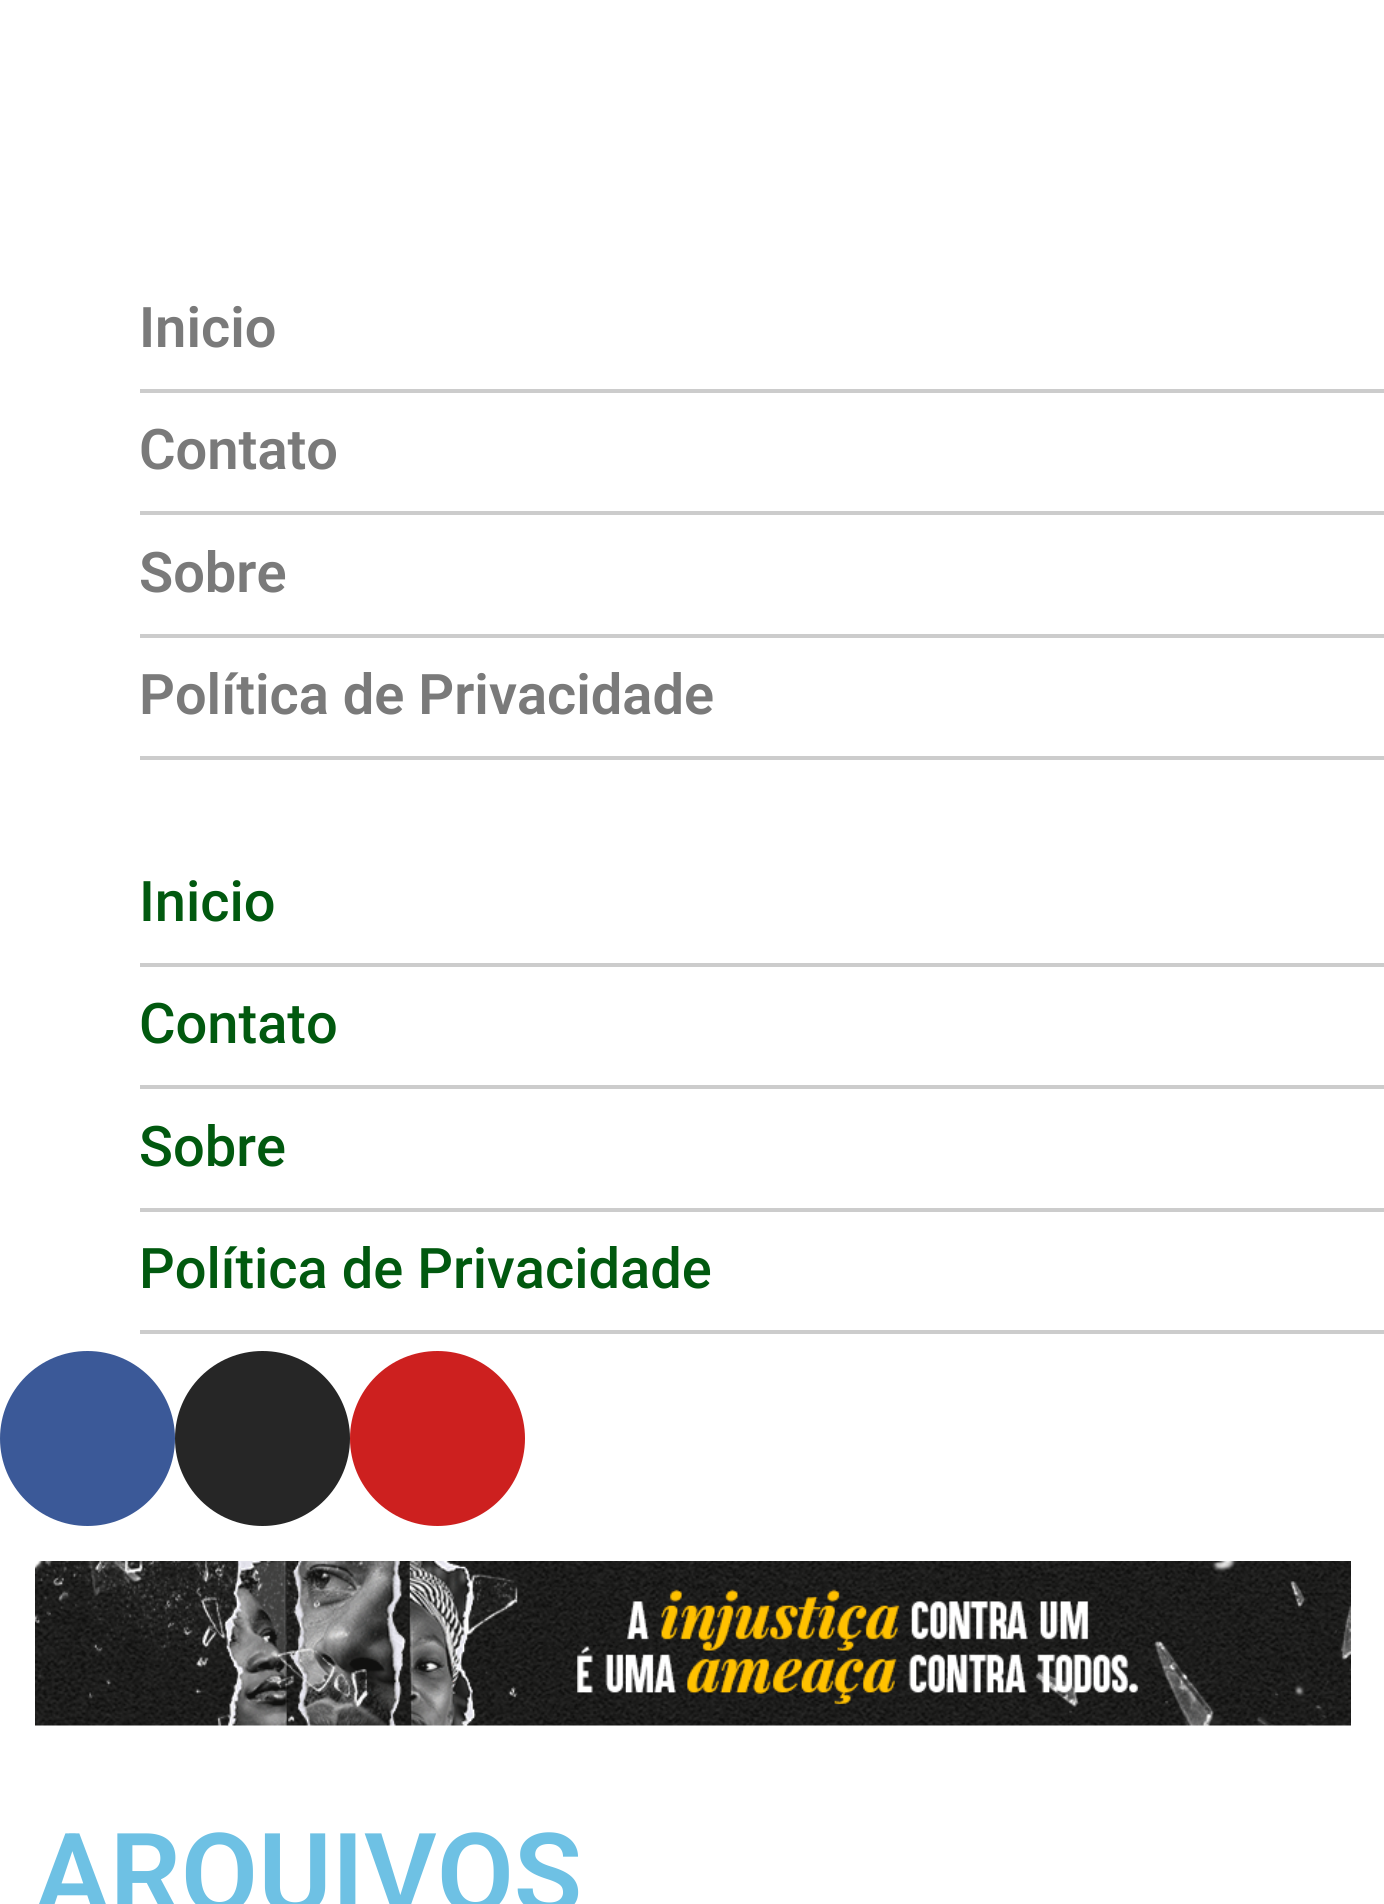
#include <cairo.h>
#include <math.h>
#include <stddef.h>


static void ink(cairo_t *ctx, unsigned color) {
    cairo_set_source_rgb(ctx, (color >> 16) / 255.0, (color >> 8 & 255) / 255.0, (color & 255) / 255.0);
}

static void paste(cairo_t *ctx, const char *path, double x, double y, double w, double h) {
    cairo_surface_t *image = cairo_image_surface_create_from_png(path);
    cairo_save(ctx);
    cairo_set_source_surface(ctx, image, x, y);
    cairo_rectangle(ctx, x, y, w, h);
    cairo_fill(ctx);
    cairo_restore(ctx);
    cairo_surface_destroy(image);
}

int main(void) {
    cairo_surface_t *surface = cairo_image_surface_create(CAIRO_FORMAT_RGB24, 1384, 1904);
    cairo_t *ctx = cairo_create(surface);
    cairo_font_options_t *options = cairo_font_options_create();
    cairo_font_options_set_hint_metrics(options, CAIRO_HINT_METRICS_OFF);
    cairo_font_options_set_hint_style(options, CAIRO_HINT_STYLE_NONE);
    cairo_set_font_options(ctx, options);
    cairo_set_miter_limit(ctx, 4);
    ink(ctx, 0xFFFFFF);
    cairo_paint(ctx);
    ink(ctx, 0xCCCCCC);
    cairo_rectangle(ctx, 140, 389, 1244, 4);
    cairo_fill(ctx);
    cairo_select_font_face(ctx, "Roboto SemiBold", CAIRO_FONT_SLANT_NORMAL, CAIRO_FONT_WEIGHT_NORMAL);
    cairo_set_font_size(ctx, 56);
    ink(ctx, 0x7A7A7A);
    cairo_move_to(ctx, 139, 347);
    cairo_show_text(ctx, "Inicio");
    ink(ctx, 0xCCCCCC);
    cairo_rectangle(ctx, 140, 511, 1244, 4);
    cairo_fill(ctx);
    ink(ctx, 0x7A7A7A);
    cairo_move_to(ctx, 139, 469);
    cairo_show_text(ctx, "Contato");
    ink(ctx, 0xCCCCCC);
    cairo_rectangle(ctx, 140, 634, 1244, 4);
    cairo_fill(ctx);
    ink(ctx, 0x7A7A7A);
    cairo_move_to(ctx, 139, 592);
    cairo_show_text(ctx, "Sobre");
    ink(ctx, 0xCCCCCC);
    cairo_rectangle(ctx, 140, 756, 1244, 4);
    cairo_fill(ctx);
    ink(ctx, 0x7A7A7A);
    cairo_move_to(ctx, 139, 714);
    cairo_show_text(ctx, "Política de Privacidade");
    ink(ctx, 0xCCCCCC);
    cairo_rectangle(ctx, 140, 963, 1244, 4);
    cairo_fill(ctx);
    cairo_select_font_face(ctx, "Roboto Medium", CAIRO_FONT_SLANT_NORMAL, CAIRO_FONT_WEIGHT_NORMAL);
    ink(ctx, 0x01590F);
    cairo_move_to(ctx, 139, 921);
    cairo_show_text(ctx, "Inicio");
    ink(ctx, 0xCCCCCC);
    cairo_rectangle(ctx, 140, 1085, 1244, 4);
    cairo_fill(ctx);
    ink(ctx, 0x01590F);
    cairo_move_to(ctx, 139, 1043);
    cairo_show_text(ctx, "Contato");
    ink(ctx, 0xCCCCCC);
    cairo_rectangle(ctx, 140, 1208, 1244, 4);
    cairo_fill(ctx);
    ink(ctx, 0x01590F);
    cairo_move_to(ctx, 139, 1166);
    cairo_show_text(ctx, "Sobre");
    ink(ctx, 0xCCCCCC);
    cairo_rectangle(ctx, 140, 1330, 1244, 4);
    cairo_fill(ctx);
    ink(ctx, 0x01590F);
    cairo_move_to(ctx, 139, 1288);
    cairo_show_text(ctx, "Política de Privacidade");
    ink(ctx, 0x3B5998);
    cairo_new_path(ctx);
    cairo_arc(ctx, 87.5, 1438.5, 87.5, 0, 2 * M_PI);
    cairo_fill(ctx);
    ink(ctx, 0x262626);
    cairo_arc(ctx, 262.5, 1438.5, 87.5, 0, 2 * M_PI);
    cairo_fill(ctx);
    ink(ctx, 0xCD201F);
    cairo_arc(ctx, 437.5, 1438.5, 87.5, 0, 2 * M_PI);
    cairo_fill(ctx);
    paste(ctx, "media/1.png", 35, 1561, 1316, 165);
    cairo_select_font_face(ctx, "Roboto SemiBold", CAIRO_FONT_SLANT_NORMAL, CAIRO_FONT_WEIGHT_NORMAL);
    cairo_set_font_size(ctx, 112);
    ink(ctx, 0x6EC1E4);
    cairo_move_to(ctx, 35, 1913);
    cairo_show_text(ctx, "ARQUIVOS");
    cairo_surface_write_to_png(surface, "image.png");
    cairo_font_options_destroy(options);
    cairo_destroy(ctx);
    cairo_surface_destroy(surface);
    return 0;
}
